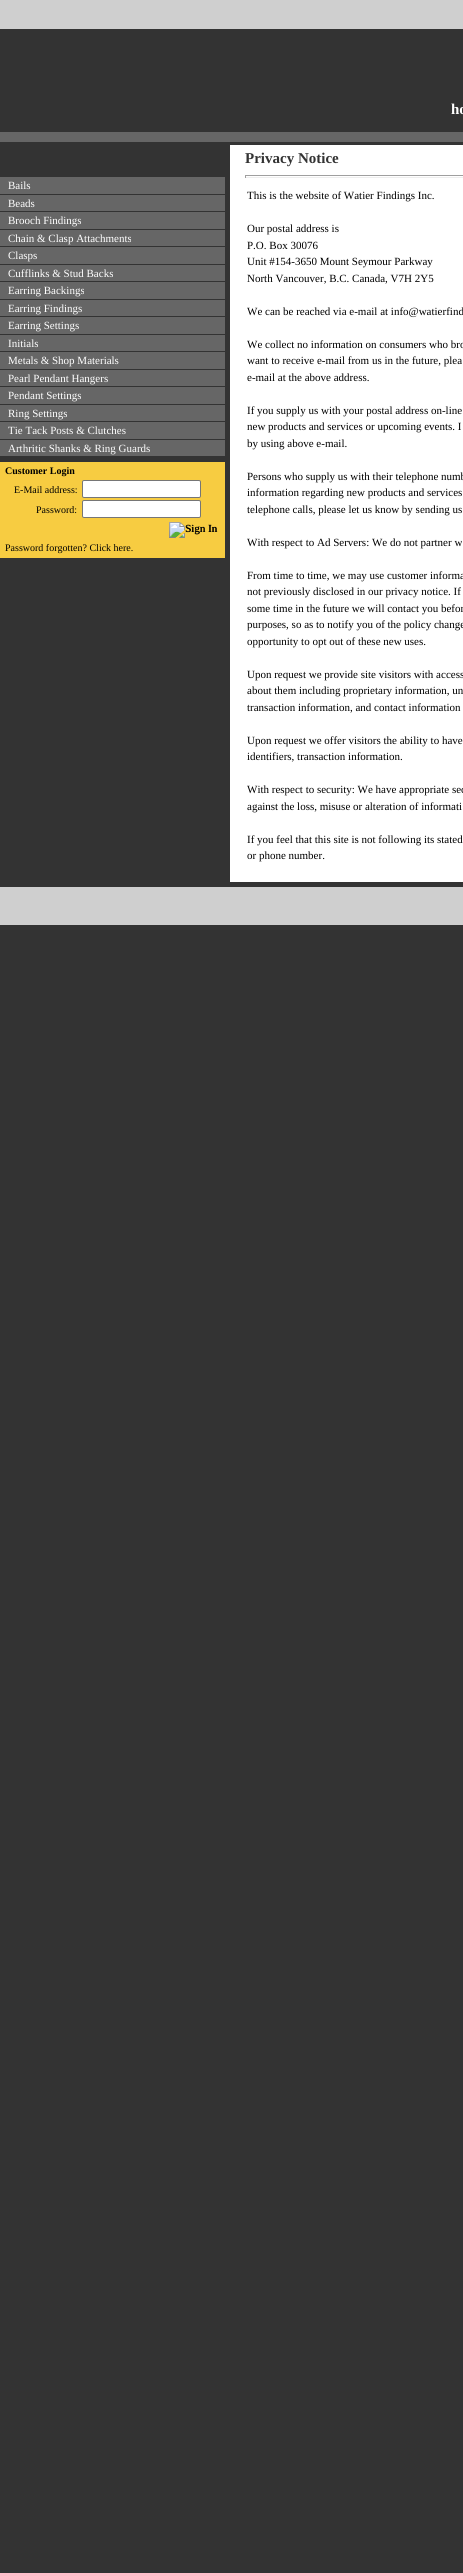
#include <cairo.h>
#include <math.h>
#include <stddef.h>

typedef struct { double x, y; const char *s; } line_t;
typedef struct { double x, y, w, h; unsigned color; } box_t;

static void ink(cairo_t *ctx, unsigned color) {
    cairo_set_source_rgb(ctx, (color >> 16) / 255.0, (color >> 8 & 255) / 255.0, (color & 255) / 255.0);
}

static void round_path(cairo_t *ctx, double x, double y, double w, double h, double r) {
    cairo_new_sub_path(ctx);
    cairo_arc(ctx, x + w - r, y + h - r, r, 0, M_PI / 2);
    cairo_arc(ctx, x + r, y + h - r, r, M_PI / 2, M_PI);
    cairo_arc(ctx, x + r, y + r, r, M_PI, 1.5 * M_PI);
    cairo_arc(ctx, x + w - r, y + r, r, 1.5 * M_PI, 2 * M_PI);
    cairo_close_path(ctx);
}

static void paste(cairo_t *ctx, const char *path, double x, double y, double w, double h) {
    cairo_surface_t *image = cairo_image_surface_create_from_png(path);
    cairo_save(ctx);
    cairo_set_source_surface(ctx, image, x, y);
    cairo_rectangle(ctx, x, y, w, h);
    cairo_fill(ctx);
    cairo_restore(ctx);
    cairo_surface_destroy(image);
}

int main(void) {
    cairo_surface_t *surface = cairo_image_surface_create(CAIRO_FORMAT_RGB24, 463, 2573);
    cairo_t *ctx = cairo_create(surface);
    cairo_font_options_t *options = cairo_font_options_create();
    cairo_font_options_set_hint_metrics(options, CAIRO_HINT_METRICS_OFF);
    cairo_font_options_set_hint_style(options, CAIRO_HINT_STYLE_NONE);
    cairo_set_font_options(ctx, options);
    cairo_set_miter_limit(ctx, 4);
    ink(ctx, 0x333333);
    cairo_paint(ctx);
    ink(ctx, 0xCFCFCF);
    cairo_rectangle(ctx, 0, 0, 463, 29);
    cairo_fill(ctx);
    cairo_select_font_face(ctx, "Liberation Serif", CAIRO_FONT_SLANT_NORMAL, CAIRO_FONT_WEIGHT_BOLD);
    cairo_set_font_size(ctx, 15);
    ink(ctx, 0xFFFFFF);
    cairo_move_to(ctx, 451, 114);
    cairo_show_text(ctx, "ho");
    ink(ctx, 0x666666);
    cairo_rectangle(ctx, 0, 132, 463, 10);
    cairo_fill(ctx);
    cairo_rectangle(ctx, 0, 177, 225, 17);
    cairo_fill(ctx);
    cairo_select_font_face(ctx, "Liberation Serif", CAIRO_FONT_SLANT_NORMAL, CAIRO_FONT_WEIGHT_NORMAL);
    cairo_set_font_size(ctx, 11);
    ink(ctx, 0xFFFFFF);
    cairo_move_to(ctx, 8, 189);
    cairo_show_text(ctx, "Bails");
    ink(ctx, 0x666666);
    cairo_rectangle(ctx, 0, 195, 225, 16);
    cairo_fill(ctx);
    ink(ctx, 0xFFFFFF);
    cairo_move_to(ctx, 8, 207);
    cairo_show_text(ctx, "Beads");
    ink(ctx, 0x666666);
    cairo_rectangle(ctx, 0, 212, 225, 17);
    cairo_fill(ctx);
    ink(ctx, 0xFFFFFF);
    cairo_move_to(ctx, 8, 224);
    cairo_show_text(ctx, "Brooch Findings");
    ink(ctx, 0x666666);
    cairo_rectangle(ctx, 0, 230, 225, 16);
    cairo_fill(ctx);
    ink(ctx, 0xFFFFFF);
    cairo_move_to(ctx, 8, 242);
    cairo_show_text(ctx, "Chain & Clasp Attachments");
    ink(ctx, 0x666666);
    cairo_rectangle(ctx, 0, 247, 225, 17);
    cairo_fill(ctx);
    ink(ctx, 0xFFFFFF);
    cairo_move_to(ctx, 8, 259);
    cairo_show_text(ctx, "Clasps");
    ink(ctx, 0x666666);
    cairo_rectangle(ctx, 0, 265, 225, 16);
    cairo_fill(ctx);
    ink(ctx, 0xFFFFFF);
    cairo_move_to(ctx, 8, 277);
    cairo_show_text(ctx, "Cufflinks & Stud Backs");
    ink(ctx, 0x666666);
    cairo_rectangle(ctx, 0, 282, 225, 17);
    cairo_fill(ctx);
    ink(ctx, 0xFFFFFF);
    cairo_move_to(ctx, 8, 294);
    cairo_show_text(ctx, "Earring Backings");
    ink(ctx, 0x666666);
    cairo_rectangle(ctx, 0, 300, 225, 16);
    cairo_fill(ctx);
    ink(ctx, 0xFFFFFF);
    cairo_move_to(ctx, 8, 312);
    cairo_show_text(ctx, "Earring Findings");
    ink(ctx, 0x666666);
    cairo_rectangle(ctx, 0, 317, 225, 17);
    cairo_fill(ctx);
    ink(ctx, 0xFFFFFF);
    cairo_move_to(ctx, 8, 329);
    cairo_show_text(ctx, "Earring Settings");
    ink(ctx, 0x666666);
    cairo_rectangle(ctx, 0, 335, 225, 16);
    cairo_fill(ctx);
    ink(ctx, 0xFFFFFF);
    cairo_move_to(ctx, 8, 347);
    cairo_show_text(ctx, "Initials");
    ink(ctx, 0x666666);
    cairo_rectangle(ctx, 0, 352, 225, 17);
    cairo_fill(ctx);
    ink(ctx, 0xFFFFFF);
    cairo_move_to(ctx, 8, 364);
    cairo_show_text(ctx, "Metals & Shop Materials");
    ink(ctx, 0x666666);
    cairo_rectangle(ctx, 0, 370, 225, 16);
    cairo_fill(ctx);
    ink(ctx, 0xFFFFFF);
    cairo_move_to(ctx, 8, 382);
    cairo_show_text(ctx, "Pearl Pendant Hangers");
    ink(ctx, 0x666666);
    cairo_rectangle(ctx, 0, 387, 225, 17);
    cairo_fill(ctx);
    ink(ctx, 0xFFFFFF);
    cairo_move_to(ctx, 8, 399);
    cairo_show_text(ctx, "Pendant Settings");
    ink(ctx, 0x666666);
    cairo_rectangle(ctx, 0, 405, 225, 16);
    cairo_fill(ctx);
    ink(ctx, 0xFFFFFF);
    cairo_move_to(ctx, 8, 417);
    cairo_show_text(ctx, "Ring Settings");
    ink(ctx, 0x666666);
    cairo_rectangle(ctx, 0, 422, 225, 17);
    cairo_fill(ctx);
    ink(ctx, 0xFFFFFF);
    cairo_move_to(ctx, 8, 434);
    cairo_show_text(ctx, "Tie Tack Posts & Clutches");
    ink(ctx, 0x666666);
    cairo_rectangle(ctx, 0, 440, 225, 16);
    cairo_fill(ctx);
    ink(ctx, 0xFFFFFF);
    cairo_move_to(ctx, 8, 452);
    cairo_show_text(ctx, "Arthritic Shanks & Ring Guards");
    ink(ctx, 0xF7CC41);
    cairo_rectangle(ctx, 0, 462, 225, 96);
    cairo_fill(ctx);
    cairo_select_font_face(ctx, "Liberation Serif", CAIRO_FONT_SLANT_NORMAL, CAIRO_FONT_WEIGHT_BOLD);
    cairo_set_font_size(ctx, 10);
    ink(ctx, 0x000000);
    cairo_move_to(ctx, 5, 474);
    cairo_show_text(ctx, "Customer Login");
    cairo_select_font_face(ctx, "Liberation Serif", CAIRO_FONT_SLANT_NORMAL, CAIRO_FONT_WEIGHT_NORMAL);
    cairo_move_to(ctx, 14, 493);
    cairo_show_text(ctx, "E-Mail address:");
    ink(ctx, 0xFFFFFF);
    round_path(ctx, 82.5, 480.5, 118, 17, 1.5);
    cairo_fill_preserve(ctx);
    ink(ctx, 0x767676);
    cairo_set_line_width(ctx, 1);
    cairo_stroke(ctx);
    ink(ctx, 0x000000);
    cairo_move_to(ctx, 36, 513);
    cairo_show_text(ctx, "Password:");
    ink(ctx, 0xFFFFFF);
    round_path(ctx, 82.5, 500.5, 118, 17, 1.5);
    cairo_fill_preserve(ctx);
    ink(ctx, 0x767676);
    cairo_stroke(ctx);
    paste(ctx, "media/1.png", 169, 522, 49, 16);
    cairo_set_font_size(ctx, 11);
    ink(ctx, 0x000000);
    cairo_move_to(ctx, 185, 532);
    cairo_show_text(ctx, "Sign In");
    cairo_set_font_size(ctx, 10);
    cairo_move_to(ctx, 5, 551);
    cairo_show_text(ctx, "Password forgotten? Click here.");
    ink(ctx, 0xFFFFFF);
    cairo_rectangle(ctx, 230, 145, 233, 737);
    cairo_fill(ctx);
    cairo_select_font_face(ctx, "Liberation Serif", CAIRO_FONT_SLANT_NORMAL, CAIRO_FONT_WEIGHT_BOLD);
    cairo_set_font_size(ctx, 15);
    ink(ctx, 0x333333);
    cairo_move_to(ctx, 245, 163);
    cairo_show_text(ctx, "Privacy Notice");
    {
        static const box_t items[] = {
            {245, 175, 218, 1, 0x9F9F9F},
            {245, 177, 218, 1, 0xEEEEEE},
            {245, 175, 1, 3, 0x9F9F9F},
        };
        for (size_t i = 0; i < sizeof items / sizeof *items; i++) {
            ink(ctx, items[i].color);
            cairo_rectangle(ctx, items[i].x, items[i].y, items[i].w, items[i].h);
            cairo_fill(ctx);
        }
    }
    cairo_select_font_face(ctx, "Liberation Serif", CAIRO_FONT_SLANT_NORMAL, CAIRO_FONT_WEIGHT_NORMAL);
    cairo_set_font_size(ctx, 11);
    ink(ctx, 0x000000);
    {
        static const line_t items[] = {
            {247, 199, "This is the website of Watier Findings Inc."},
            {247, 232, "Our postal address is"},
            {247, 249, "P.O. Box 30076"},
            {247, 265, "Unit #154-3650 Mount Seymour Parkway"},
            {247, 282, "North Vancouver, B.C. Canada, V7H 2Y5"},
            {247, 315, "We can be reached via e-mail at info@watierfind"},
            {247, 348, "We collect no information on consumers who bro"},
            {247, 364, "want to receive e-mail from us in the future, plea"},
            {247, 381, "e-mail at the above address."},
            {247, 414, "If you supply us with your postal address on-line"},
            {247, 430, "new products and services or upcoming events. I"},
            {247, 447, "by using above e-mail."},
            {247, 480, "Persons who supply us with their telephone numb"},
            {247, 496, "information regarding new products and services"},
            {247, 513, "telephone calls, please let us know by sending us"},
            {247, 546, "With respect to Ad Servers: We do not partner w"},
            {247, 579, "From time to time, we may use customer informa"},
            {247, 595, "not previously disclosed in our privacy notice. If"},
            {247, 612, "some time in the future we will contact you befor"},
            {247, 628, "purposes, so as to notify you of the policy change"},
            {247, 645, "opportunity to opt out of these new uses."},
            {247, 678, "Upon request we provide site visitors with access"},
            {247, 694, "about them including proprietary information, un"},
            {247, 711, "transaction information, and contact information"},
            {247, 744, "Upon request we offer visitors the ability to have"},
            {247, 760, "identifiers, transaction information."},
            {247, 793, "With respect to security: We have appropriate sec"},
            {247, 810, "against the loss, misuse or alteration of informati"},
            {247, 843, "If you feel that this site is not following its stated"},
            {247, 859, "or phone number."},
        };
        for (size_t i = 0; i < sizeof items / sizeof *items; i++) {
            cairo_move_to(ctx, items[i].x, items[i].y);
            cairo_show_text(ctx, items[i].s);
        }
    }
    ink(ctx, 0xCFCFCF);
    cairo_rectangle(ctx, 0, 887, 463, 38);
    cairo_fill(ctx);
    cairo_surface_write_to_png(surface, "image.png");
    cairo_font_options_destroy(options);
    cairo_destroy(ctx);
    cairo_surface_destroy(surface);
    return 0;
}
